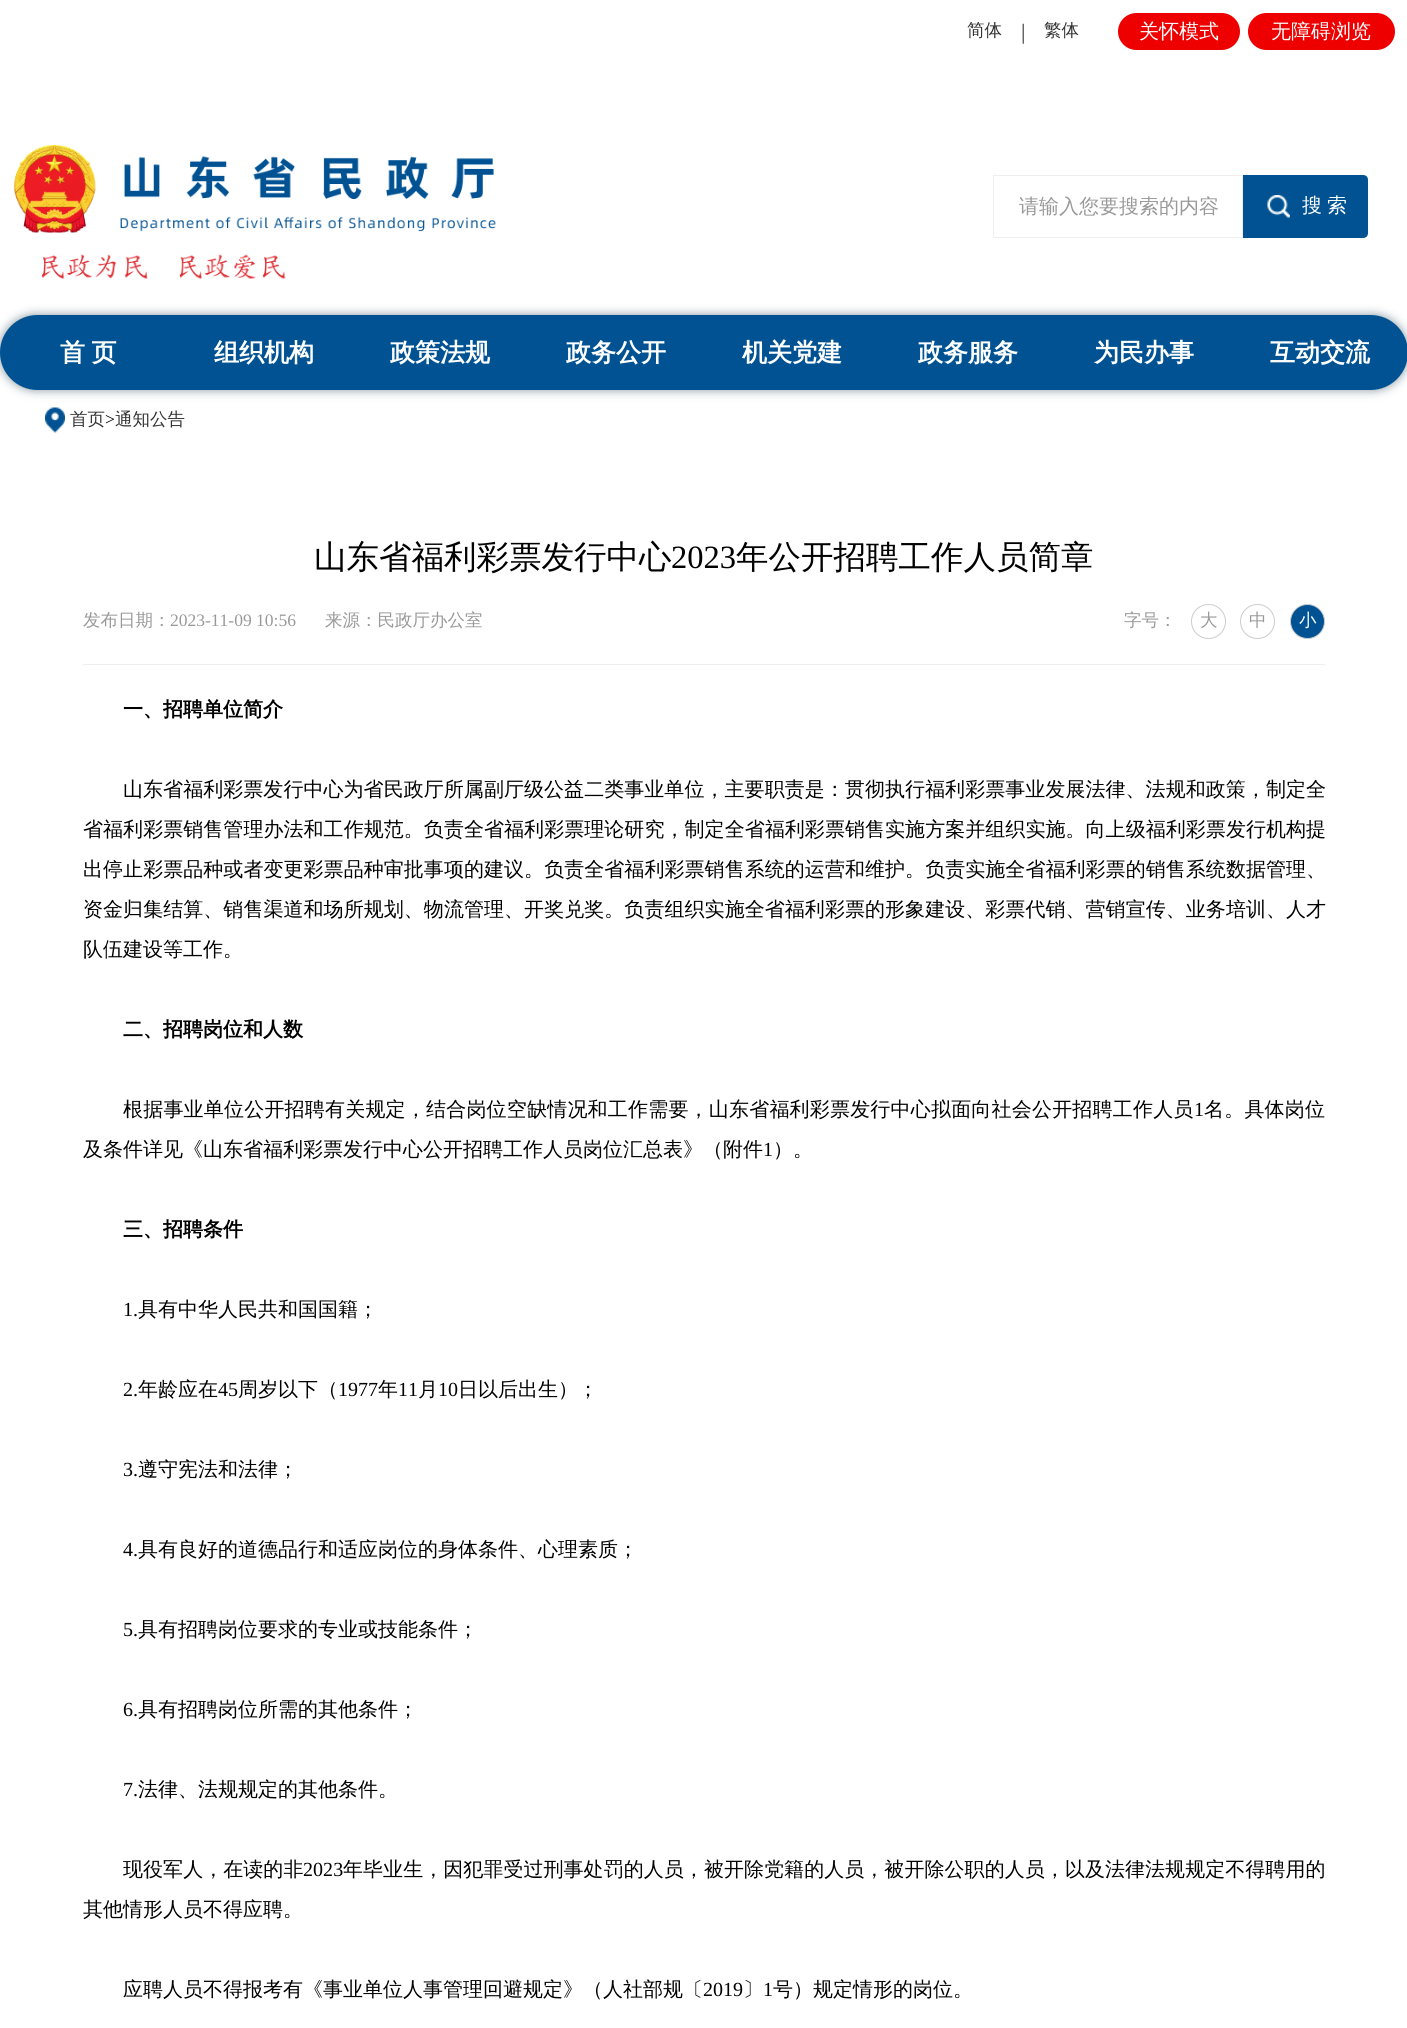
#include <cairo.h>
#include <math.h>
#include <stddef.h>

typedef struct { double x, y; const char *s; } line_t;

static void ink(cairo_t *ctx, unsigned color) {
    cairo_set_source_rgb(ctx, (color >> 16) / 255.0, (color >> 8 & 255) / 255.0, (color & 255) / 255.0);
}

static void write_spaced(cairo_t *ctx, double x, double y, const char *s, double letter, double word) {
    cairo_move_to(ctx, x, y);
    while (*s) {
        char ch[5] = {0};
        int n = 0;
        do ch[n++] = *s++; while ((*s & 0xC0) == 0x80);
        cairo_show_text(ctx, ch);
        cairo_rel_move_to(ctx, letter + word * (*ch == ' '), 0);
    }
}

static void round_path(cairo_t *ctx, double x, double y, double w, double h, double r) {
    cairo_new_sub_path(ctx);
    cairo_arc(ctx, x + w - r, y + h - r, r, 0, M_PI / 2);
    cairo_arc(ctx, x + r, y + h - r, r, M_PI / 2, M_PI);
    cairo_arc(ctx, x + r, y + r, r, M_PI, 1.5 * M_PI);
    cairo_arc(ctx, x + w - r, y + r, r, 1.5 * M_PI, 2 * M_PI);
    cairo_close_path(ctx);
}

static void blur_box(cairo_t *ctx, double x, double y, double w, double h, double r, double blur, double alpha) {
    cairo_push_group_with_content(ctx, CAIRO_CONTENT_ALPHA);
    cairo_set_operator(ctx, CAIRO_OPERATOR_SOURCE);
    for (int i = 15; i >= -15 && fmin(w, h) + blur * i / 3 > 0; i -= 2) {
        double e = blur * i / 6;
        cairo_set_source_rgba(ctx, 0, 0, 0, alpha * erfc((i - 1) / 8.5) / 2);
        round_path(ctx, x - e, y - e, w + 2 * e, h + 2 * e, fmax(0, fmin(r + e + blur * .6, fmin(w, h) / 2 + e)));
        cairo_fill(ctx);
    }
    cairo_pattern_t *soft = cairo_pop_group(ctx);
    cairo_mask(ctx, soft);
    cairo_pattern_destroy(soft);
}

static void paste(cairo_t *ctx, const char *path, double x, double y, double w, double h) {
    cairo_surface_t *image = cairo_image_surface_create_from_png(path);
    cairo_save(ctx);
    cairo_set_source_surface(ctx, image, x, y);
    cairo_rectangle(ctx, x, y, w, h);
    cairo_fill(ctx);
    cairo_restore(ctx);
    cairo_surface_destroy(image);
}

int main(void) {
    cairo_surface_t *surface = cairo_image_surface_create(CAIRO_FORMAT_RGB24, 1407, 2028);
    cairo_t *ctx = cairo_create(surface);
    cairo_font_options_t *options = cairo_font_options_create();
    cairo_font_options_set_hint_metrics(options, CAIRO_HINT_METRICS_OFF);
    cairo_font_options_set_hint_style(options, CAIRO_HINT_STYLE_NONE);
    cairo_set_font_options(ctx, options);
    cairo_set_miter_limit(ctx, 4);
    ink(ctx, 0xFFFFFF);
    cairo_paint(ctx);
    cairo_select_font_face(ctx, "WenQuanYi Zen Hei Medium", CAIRO_FONT_SLANT_NORMAL, CAIRO_FONT_WEIGHT_NORMAL);
    cairo_set_font_size(ctx, 17.5);
    ink(ctx, 0x333333);
    cairo_move_to(ctx, 967, 36);
    cairo_show_text(ctx, "简体");
    cairo_select_font_face(ctx, "Liberation Serif", CAIRO_FONT_SLANT_NORMAL, CAIRO_FONT_WEIGHT_NORMAL);
    cairo_set_font_size(ctx, 22);
    cairo_move_to(ctx, 1021, 39);
    cairo_show_text(ctx, "|");
    cairo_select_font_face(ctx, "WenQuanYi Zen Hei Medium", CAIRO_FONT_SLANT_NORMAL, CAIRO_FONT_WEIGHT_NORMAL);
    cairo_set_font_size(ctx, 17.5);
    cairo_move_to(ctx, 1044, 36);
    cairo_show_text(ctx, "繁体");
    ink(ctx, 0xEE0000);
    round_path(ctx, 1118, 13, 122, 37, 18.5);
    cairo_fill(ctx);
    cairo_set_font_size(ctx, 20);
    ink(ctx, 0xFFFFFF);
    cairo_move_to(ctx, 1139, 38);
    cairo_show_text(ctx, "关怀模式");
    ink(ctx, 0xEE0000);
    round_path(ctx, 1248, 13, 147, 37, 18.5);
    cairo_fill(ctx);
    ink(ctx, 0xFFFFFF);
    cairo_move_to(ctx, 1271, 38);
    cairo_show_text(ctx, "无障碍浏览");
    paste(ctx, "media/1.png", 13, 145, 483, 88);
    cairo_rectangle(ctx, 993.5, 175.5, 249, 62);
    ink(ctx, 0xEEEEEE);
    cairo_set_line_width(ctx, 1);
    cairo_stroke(ctx);
    ink(ctx, 0x999999);
    cairo_move_to(ctx, 1019, 213);
    cairo_show_text(ctx, "请输入您要搜索的内容");
    ink(ctx, 0x005293);
    cairo_new_path(ctx);
    cairo_move_to(ctx, 1243, 175);
    cairo_line_to(ctx, 1363, 175);
    cairo_curve_to(ctx, 1366, 175, 1368, 177, 1368, 180);
    cairo_line_to(ctx, 1368, 233);
    cairo_curve_to(ctx, 1368, 236, 1366, 238, 1363, 238);
    cairo_line_to(ctx, 1243, 238);
    cairo_close_path(ctx);
    cairo_fill(ctx);
    paste(ctx, "media/2.png", 1267, 195, 23, 23);
    ink(ctx, 0xFFFFFF);
    write_spaced(ctx, 1302, 212, "搜 索", 0, -1);
    paste(ctx, "media/3.png", 41, 254, 245, 25);
    ink(ctx, 0x092C3F);
    blur_box(ctx, 0, 315, 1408, 75, 37.5, 5, 0.5);
    ink(ctx, 0x005293);
    round_path(ctx, 0, 315, 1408, 75, 37.5);
    cairo_fill(ctx);
    cairo_select_font_face(ctx, "WenQuanYi Zen Hei", CAIRO_FONT_SLANT_NORMAL, CAIRO_FONT_WEIGHT_BOLD);
    cairo_set_font_size(ctx, 25);
    ink(ctx, 0xFFFFFF);
    write_spaced(ctx, 60, 361, "首 页", 0, -1);
    {
        static const line_t items[] = {
            {214, 361, "组织机构"},
            {390, 361, "政策法规"},
            {566, 361, "政务公开"},
            {742, 361, "机关党建"},
            {918, 361, "政务服务"},
            {1094, 361, "为民办事"},
            {1270, 361, "互动交流"},
        };
        for (size_t i = 0; i < sizeof items / sizeof *items; i++) {
            cairo_move_to(ctx, items[i].x, items[i].y);
            cairo_show_text(ctx, items[i].s);
        }
    }
    paste(ctx, "media/4.png", 45, 407, 20, 26);
    cairo_select_font_face(ctx, "WenQuanYi Zen Hei Medium", CAIRO_FONT_SLANT_NORMAL, CAIRO_FONT_WEIGHT_NORMAL);
    cairo_set_font_size(ctx, 17.5);
    ink(ctx, 0x333333);
    cairo_move_to(ctx, 70, 425);
    cairo_show_text(ctx, "首页");
    cairo_select_font_face(ctx, "Liberation Serif", CAIRO_FONT_SLANT_NORMAL, CAIRO_FONT_WEIGHT_NORMAL);
    ink(ctx, 0x000000);
    cairo_move_to(ctx, 105, 425);
    cairo_show_text(ctx, ">");
    cairo_select_font_face(ctx, "WenQuanYi Zen Hei Medium", CAIRO_FONT_SLANT_NORMAL, CAIRO_FONT_WEIGHT_NORMAL);
    ink(ctx, 0x333333);
    cairo_move_to(ctx, 115, 425);
    cairo_show_text(ctx, "通知公告");
    cairo_set_font_size(ctx, 32.5);
    ink(ctx, 0x000000);
    cairo_move_to(ctx, 314, 568);
    cairo_show_text(ctx, "山东省福利彩票发行中心");
    cairo_select_font_face(ctx, "Liberation Serif", CAIRO_FONT_SLANT_NORMAL, CAIRO_FONT_WEIGHT_NORMAL);
    cairo_move_to(ctx, 671, 568);
    cairo_show_text(ctx, "2023");
    cairo_select_font_face(ctx, "WenQuanYi Zen Hei Medium", CAIRO_FONT_SLANT_NORMAL, CAIRO_FONT_WEIGHT_NORMAL);
    cairo_move_to(ctx, 736, 568);
    cairo_show_text(ctx, "年公开招聘工作人员简章");
    ink(ctx, 0xEEEEEE);
    cairo_rectangle(ctx, 83, 664, 1242, 1);
    cairo_fill(ctx);
    cairo_set_font_size(ctx, 17.5);
    ink(ctx, 0x999999);
    cairo_move_to(ctx, 83, 626);
    cairo_show_text(ctx, "发布日期：");
    cairo_select_font_face(ctx, "Liberation Serif", CAIRO_FONT_SLANT_NORMAL, CAIRO_FONT_WEIGHT_NORMAL);
    cairo_move_to(ctx, 170, 626);
    cairo_show_text(ctx, "2023-11-09 10:56");
    cairo_select_font_face(ctx, "WenQuanYi Zen Hei Medium", CAIRO_FONT_SLANT_NORMAL, CAIRO_FONT_WEIGHT_NORMAL);
    cairo_move_to(ctx, 325, 626);
    cairo_show_text(ctx, "来源：民政厅办公室");
    cairo_move_to(ctx, 1124, 626);
    cairo_show_text(ctx, "字号：");
    cairo_new_path(ctx);
    cairo_arc(ctx, 1208.5, 621.5, 17, 0, 2 * M_PI);
    ink(ctx, 0xCCCCCC);
    cairo_stroke(ctx);
    ink(ctx, 0x999999);
    cairo_move_to(ctx, 1200, 626);
    cairo_show_text(ctx, "大");
    cairo_new_path(ctx);
    cairo_arc(ctx, 1257.5, 621.5, 17, 0, 2 * M_PI);
    ink(ctx, 0xCCCCCC);
    cairo_stroke(ctx);
    ink(ctx, 0x999999);
    cairo_move_to(ctx, 1249, 626);
    cairo_show_text(ctx, "中");
    ink(ctx, 0x005293);
    cairo_new_path(ctx);
    cairo_arc(ctx, 1307.5, 621.5, 17, 0, 2 * M_PI);
    cairo_fill_preserve(ctx);
    ink(ctx, 0xCCCCCC);
    cairo_stroke(ctx);
    ink(ctx, 0xFFFFFF);
    cairo_move_to(ctx, 1299, 626);
    cairo_show_text(ctx, "小");
    cairo_select_font_face(ctx, "WenQuanYi Zen Hei", CAIRO_FONT_SLANT_NORMAL, CAIRO_FONT_WEIGHT_BOLD);
    cairo_set_font_size(ctx, 20);
    ink(ctx, 0x000000);
    cairo_move_to(ctx, 123, 716);
    cairo_show_text(ctx, "一、招聘单位简介");
    cairo_select_font_face(ctx, "WenQuanYi Zen Hei Medium", CAIRO_FONT_SLANT_NORMAL, CAIRO_FONT_WEIGHT_NORMAL);
    {
        static const line_t items[] = {
            {123, 796, "山东省福利彩票发行中心为省民政厅所属副厅级公益二类事业单位，主要职责是：贯彻执行福利彩票事业发展法律、法规和政策，制定全"},
            {83, 836, "省福利彩票销售管理办法和工作规范。负责全省福利彩票理论研究，制定全省福利彩票销售实施方案并组织实施。向上级福利彩票发行机构提"},
            {83, 876, "出停止彩票品种或者变更彩票品种审批事项的建议。负责全省福利彩票销售系统的运营和维护。负责实施全省福利彩票的销售系统数据管理、"},
            {83, 916, "资金归集结算、销售渠道和场所规划、物流管理、开奖兑奖。负责组织实施全省福利彩票的形象建设、彩票代销、营销宣传、业务培训、人才"},
        };
        for (size_t i = 0; i < sizeof items / sizeof *items; i++) {
            write_spaced(ctx, items[i].x, items[i].y, items[i].s, 0.05, 0);
        }
    }
    cairo_move_to(ctx, 83, 956);
    cairo_show_text(ctx, "队伍建设等工作。");
    cairo_select_font_face(ctx, "WenQuanYi Zen Hei", CAIRO_FONT_SLANT_NORMAL, CAIRO_FONT_WEIGHT_BOLD);
    cairo_move_to(ctx, 123, 1036);
    cairo_show_text(ctx, "二、招聘岗位和人数");
    cairo_select_font_face(ctx, "WenQuanYi Zen Hei Medium", CAIRO_FONT_SLANT_NORMAL, CAIRO_FONT_WEIGHT_NORMAL);
    write_spaced(ctx, 123, 1116, "根据事业单位公开招聘有关规定，结合岗位空缺情况和工作需要，山东省福利彩票发行中心拟面向社会公开招聘工作人员", 0.2, 0);
    cairo_select_font_face(ctx, "Liberation Serif", CAIRO_FONT_SLANT_NORMAL, CAIRO_FONT_WEIGHT_NORMAL);
    write_spaced(ctx, 1194, 1116, "1", 0.2, 0);
    cairo_select_font_face(ctx, "WenQuanYi Zen Hei Medium", CAIRO_FONT_SLANT_NORMAL, CAIRO_FONT_WEIGHT_NORMAL);
    write_spaced(ctx, 1204, 1116, "名。具体岗位", 0.2, 0);
    cairo_move_to(ctx, 83, 1156);
    cairo_show_text(ctx, "及条件详见《山东省福利彩票发行中心公开招聘工作人员岗位汇总表》（附件");
    cairo_select_font_face(ctx, "Liberation Serif", CAIRO_FONT_SLANT_NORMAL, CAIRO_FONT_WEIGHT_NORMAL);
    cairo_move_to(ctx, 763, 1156);
    cairo_show_text(ctx, "1");
    cairo_select_font_face(ctx, "WenQuanYi Zen Hei Medium", CAIRO_FONT_SLANT_NORMAL, CAIRO_FONT_WEIGHT_NORMAL);
    cairo_move_to(ctx, 773, 1156);
    cairo_show_text(ctx, "）。");
    cairo_select_font_face(ctx, "WenQuanYi Zen Hei", CAIRO_FONT_SLANT_NORMAL, CAIRO_FONT_WEIGHT_BOLD);
    cairo_move_to(ctx, 123, 1236);
    cairo_show_text(ctx, "三、招聘条件");
    cairo_select_font_face(ctx, "Liberation Serif", CAIRO_FONT_SLANT_NORMAL, CAIRO_FONT_WEIGHT_NORMAL);
    cairo_move_to(ctx, 123, 1316);
    cairo_show_text(ctx, "1.");
    cairo_select_font_face(ctx, "WenQuanYi Zen Hei Medium", CAIRO_FONT_SLANT_NORMAL, CAIRO_FONT_WEIGHT_NORMAL);
    cairo_move_to(ctx, 138, 1316);
    cairo_show_text(ctx, "具有中华人民共和国国籍；");
    cairo_select_font_face(ctx, "Liberation Serif", CAIRO_FONT_SLANT_NORMAL, CAIRO_FONT_WEIGHT_NORMAL);
    cairo_move_to(ctx, 123, 1396);
    cairo_show_text(ctx, "2.");
    cairo_select_font_face(ctx, "WenQuanYi Zen Hei Medium", CAIRO_FONT_SLANT_NORMAL, CAIRO_FONT_WEIGHT_NORMAL);
    cairo_move_to(ctx, 138, 1396);
    cairo_show_text(ctx, "年龄应在");
    cairo_select_font_face(ctx, "Liberation Serif", CAIRO_FONT_SLANT_NORMAL, CAIRO_FONT_WEIGHT_NORMAL);
    cairo_move_to(ctx, 218, 1396);
    cairo_show_text(ctx, "45");
    cairo_select_font_face(ctx, "WenQuanYi Zen Hei Medium", CAIRO_FONT_SLANT_NORMAL, CAIRO_FONT_WEIGHT_NORMAL);
    cairo_move_to(ctx, 238, 1396);
    cairo_show_text(ctx, "周岁以下（");
    cairo_select_font_face(ctx, "Liberation Serif", CAIRO_FONT_SLANT_NORMAL, CAIRO_FONT_WEIGHT_NORMAL);
    cairo_move_to(ctx, 338, 1396);
    cairo_show_text(ctx, "1977");
    cairo_select_font_face(ctx, "WenQuanYi Zen Hei Medium", CAIRO_FONT_SLANT_NORMAL, CAIRO_FONT_WEIGHT_NORMAL);
    cairo_move_to(ctx, 378, 1396);
    cairo_show_text(ctx, "年");
    cairo_select_font_face(ctx, "Liberation Serif", CAIRO_FONT_SLANT_NORMAL, CAIRO_FONT_WEIGHT_NORMAL);
    cairo_move_to(ctx, 398, 1396);
    cairo_show_text(ctx, "11");
    cairo_select_font_face(ctx, "WenQuanYi Zen Hei Medium", CAIRO_FONT_SLANT_NORMAL, CAIRO_FONT_WEIGHT_NORMAL);
    cairo_move_to(ctx, 418, 1396);
    cairo_show_text(ctx, "月");
    cairo_select_font_face(ctx, "Liberation Serif", CAIRO_FONT_SLANT_NORMAL, CAIRO_FONT_WEIGHT_NORMAL);
    cairo_move_to(ctx, 438, 1396);
    cairo_show_text(ctx, "10");
    cairo_select_font_face(ctx, "WenQuanYi Zen Hei Medium", CAIRO_FONT_SLANT_NORMAL, CAIRO_FONT_WEIGHT_NORMAL);
    cairo_move_to(ctx, 458, 1396);
    cairo_show_text(ctx, "日以后出生）；");
    cairo_select_font_face(ctx, "Liberation Serif", CAIRO_FONT_SLANT_NORMAL, CAIRO_FONT_WEIGHT_NORMAL);
    cairo_move_to(ctx, 123, 1476);
    cairo_show_text(ctx, "3.");
    cairo_select_font_face(ctx, "WenQuanYi Zen Hei Medium", CAIRO_FONT_SLANT_NORMAL, CAIRO_FONT_WEIGHT_NORMAL);
    cairo_move_to(ctx, 138, 1476);
    cairo_show_text(ctx, "遵守宪法和法律；");
    cairo_select_font_face(ctx, "Liberation Serif", CAIRO_FONT_SLANT_NORMAL, CAIRO_FONT_WEIGHT_NORMAL);
    cairo_move_to(ctx, 123, 1556);
    cairo_show_text(ctx, "4.");
    cairo_select_font_face(ctx, "WenQuanYi Zen Hei Medium", CAIRO_FONT_SLANT_NORMAL, CAIRO_FONT_WEIGHT_NORMAL);
    cairo_move_to(ctx, 138, 1556);
    cairo_show_text(ctx, "具有良好的道德品行和适应岗位的身体条件、心理素质；");
    cairo_select_font_face(ctx, "Liberation Serif", CAIRO_FONT_SLANT_NORMAL, CAIRO_FONT_WEIGHT_NORMAL);
    cairo_move_to(ctx, 123, 1636);
    cairo_show_text(ctx, "5.");
    cairo_select_font_face(ctx, "WenQuanYi Zen Hei Medium", CAIRO_FONT_SLANT_NORMAL, CAIRO_FONT_WEIGHT_NORMAL);
    cairo_move_to(ctx, 138, 1636);
    cairo_show_text(ctx, "具有招聘岗位要求的专业或技能条件；");
    cairo_select_font_face(ctx, "Liberation Serif", CAIRO_FONT_SLANT_NORMAL, CAIRO_FONT_WEIGHT_NORMAL);
    cairo_move_to(ctx, 123, 1716);
    cairo_show_text(ctx, "6.");
    cairo_select_font_face(ctx, "WenQuanYi Zen Hei Medium", CAIRO_FONT_SLANT_NORMAL, CAIRO_FONT_WEIGHT_NORMAL);
    cairo_move_to(ctx, 138, 1716);
    cairo_show_text(ctx, "具有招聘岗位所需的其他条件；");
    cairo_select_font_face(ctx, "Liberation Serif", CAIRO_FONT_SLANT_NORMAL, CAIRO_FONT_WEIGHT_NORMAL);
    cairo_move_to(ctx, 123, 1796);
    cairo_show_text(ctx, "7.");
    cairo_select_font_face(ctx, "WenQuanYi Zen Hei Medium", CAIRO_FONT_SLANT_NORMAL, CAIRO_FONT_WEIGHT_NORMAL);
    cairo_move_to(ctx, 138, 1796);
    cairo_show_text(ctx, "法律、法规规定的其他条件。");
    write_spaced(ctx, 123, 1876, "现役军人，在读的非", 0.05, 0);
    cairo_select_font_face(ctx, "Liberation Serif", CAIRO_FONT_SLANT_NORMAL, CAIRO_FONT_WEIGHT_NORMAL);
    write_spaced(ctx, 303, 1876, "2023", 0.05, 0);
    cairo_select_font_face(ctx, "WenQuanYi Zen Hei Medium", CAIRO_FONT_SLANT_NORMAL, CAIRO_FONT_WEIGHT_NORMAL);
    write_spaced(ctx, 343, 1876, "年毕业生，因犯罪受过刑事处罚的人员，被开除党籍的人员，被开除公职的人员，以及法律法规规定不得聘用的", 0.05, 0);
    cairo_move_to(ctx, 83, 1916);
    cairo_show_text(ctx, "其他情形人员不得应聘。");
    cairo_move_to(ctx, 123, 1996);
    cairo_show_text(ctx, "应聘人员不得报考有《事业单位人事管理回避规定》（人社部规〔");
    cairo_select_font_face(ctx, "Liberation Serif", CAIRO_FONT_SLANT_NORMAL, CAIRO_FONT_WEIGHT_NORMAL);
    cairo_move_to(ctx, 703, 1996);
    cairo_show_text(ctx, "2019");
    cairo_select_font_face(ctx, "WenQuanYi Zen Hei Medium", CAIRO_FONT_SLANT_NORMAL, CAIRO_FONT_WEIGHT_NORMAL);
    cairo_move_to(ctx, 743, 1996);
    cairo_show_text(ctx, "〕");
    cairo_select_font_face(ctx, "Liberation Serif", CAIRO_FONT_SLANT_NORMAL, CAIRO_FONT_WEIGHT_NORMAL);
    cairo_move_to(ctx, 763, 1996);
    cairo_show_text(ctx, "1");
    cairo_select_font_face(ctx, "WenQuanYi Zen Hei Medium", CAIRO_FONT_SLANT_NORMAL, CAIRO_FONT_WEIGHT_NORMAL);
    cairo_move_to(ctx, 773, 1996);
    cairo_show_text(ctx, "号）规定情形的岗位。");
    cairo_surface_write_to_png(surface, "image.png");
    cairo_font_options_destroy(options);
    cairo_destroy(ctx);
    cairo_surface_destroy(surface);
    return 0;
}
